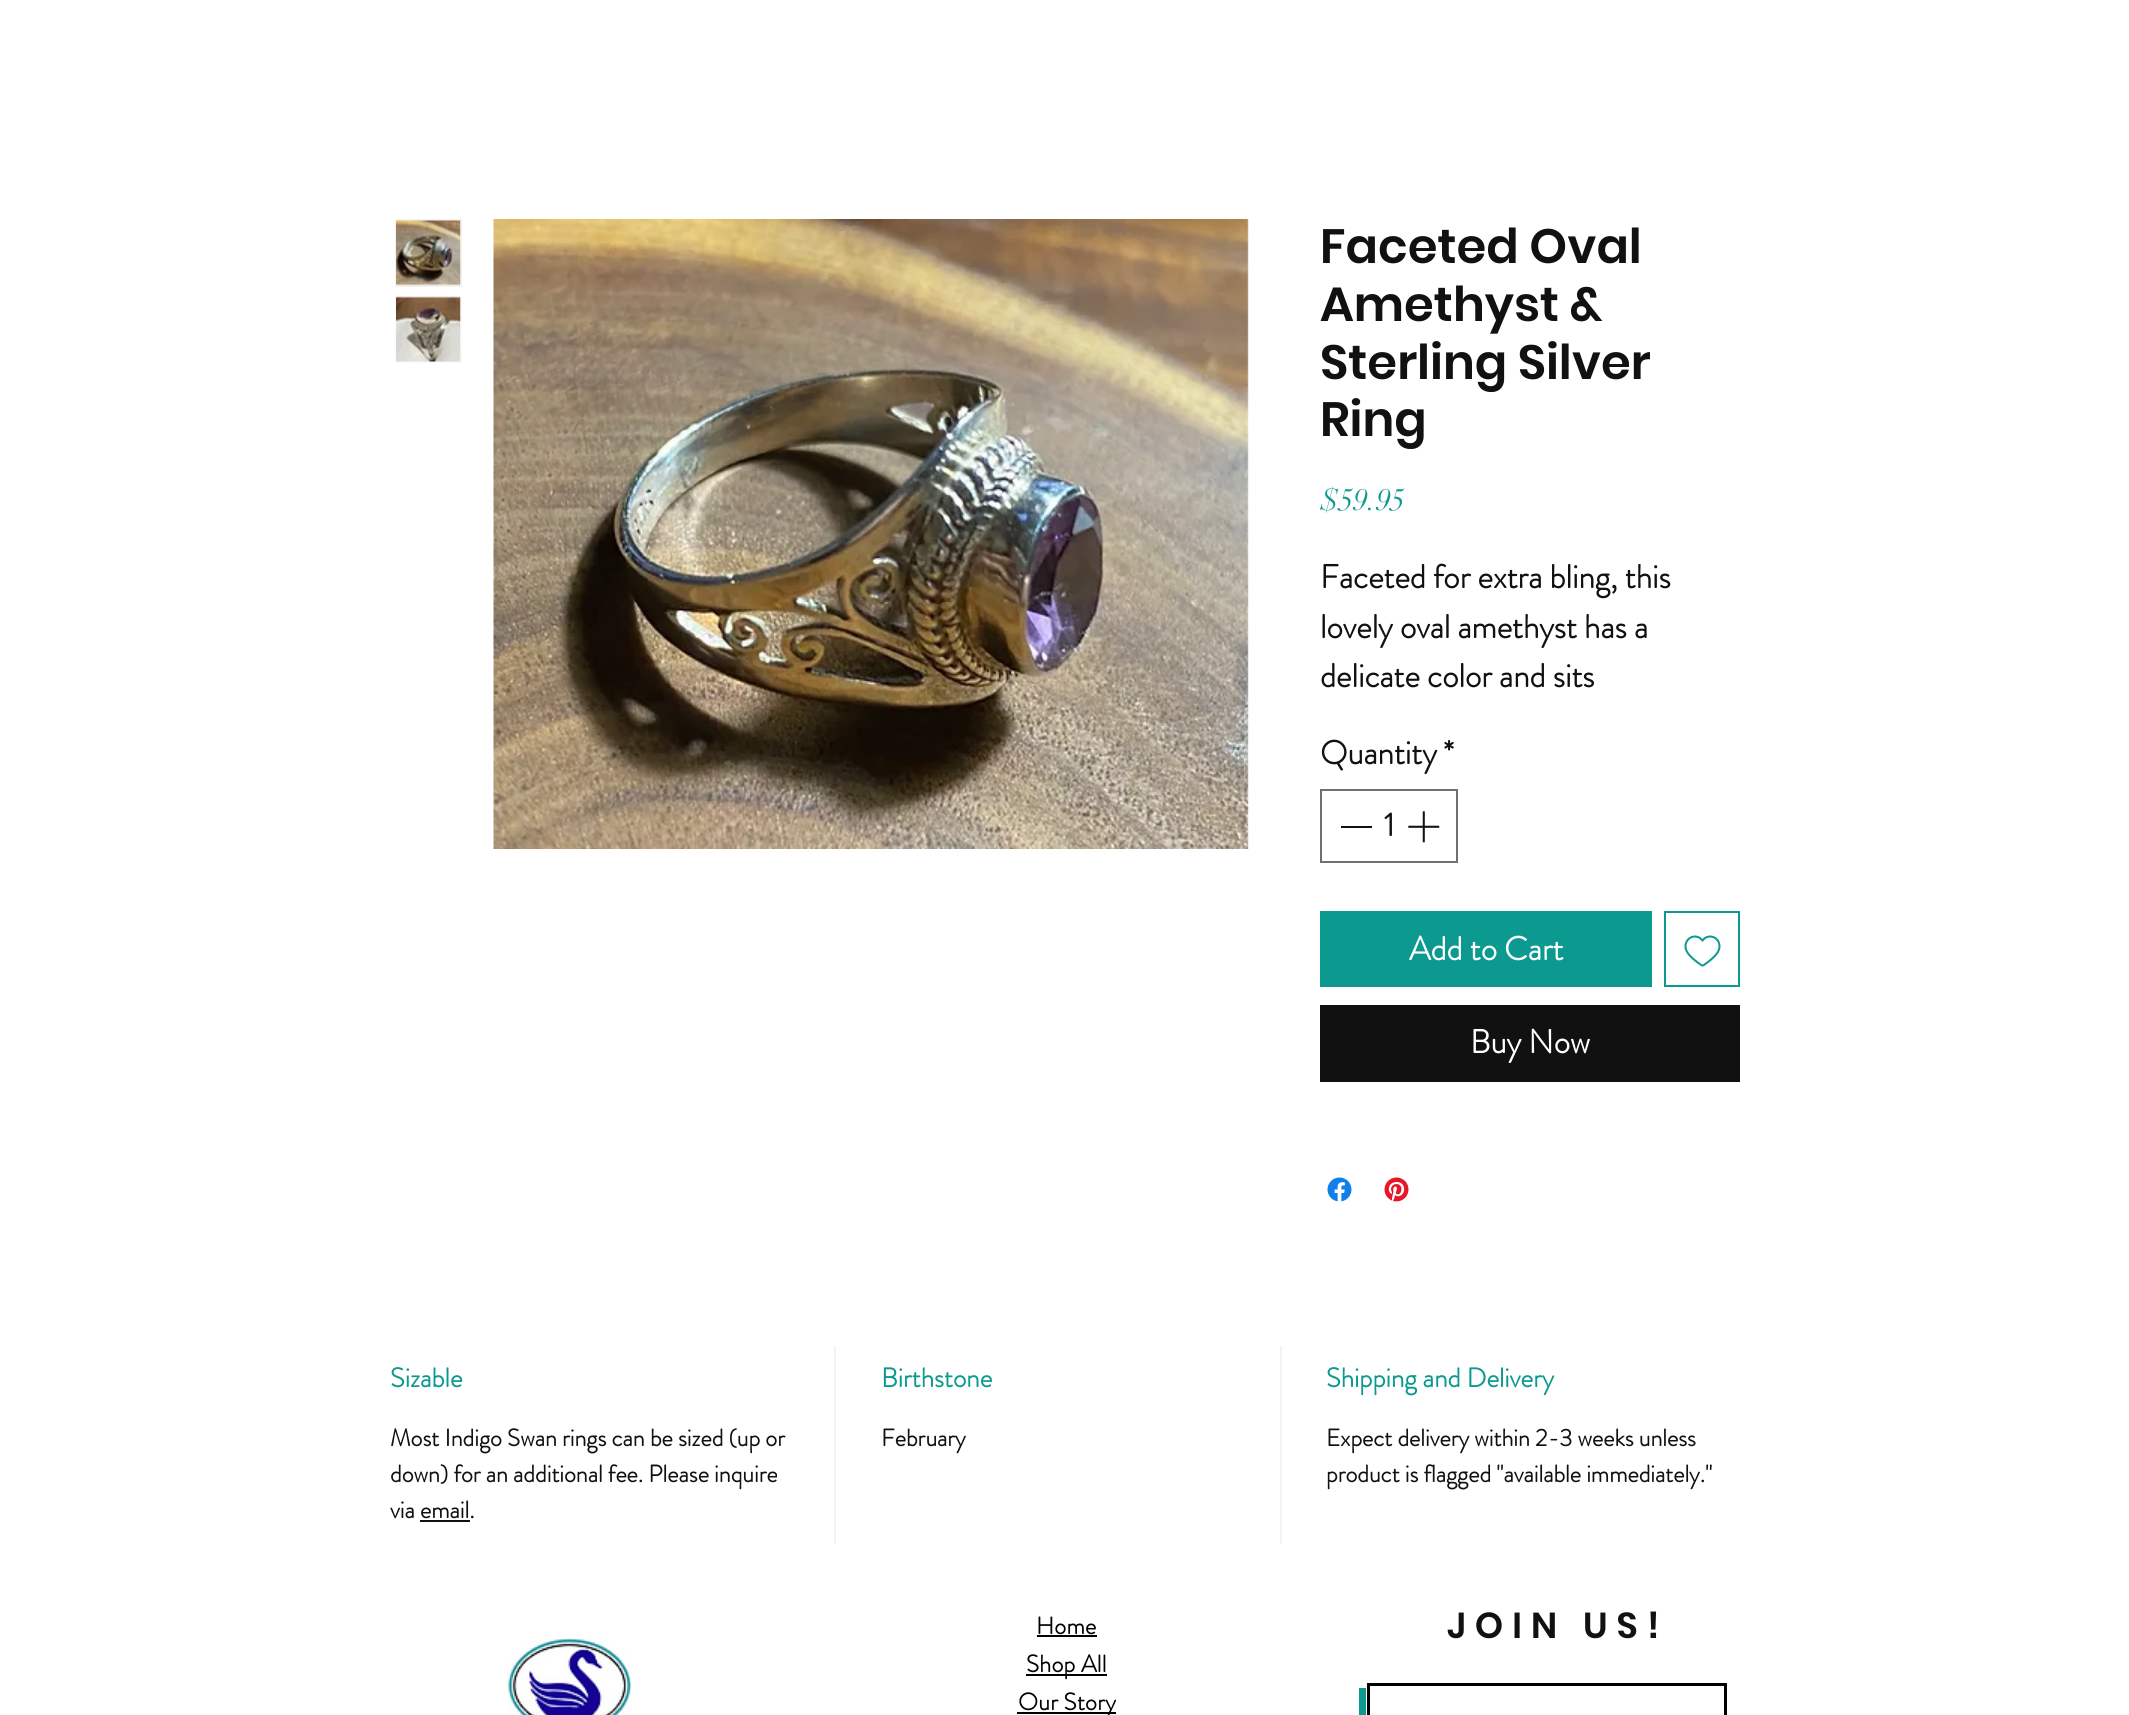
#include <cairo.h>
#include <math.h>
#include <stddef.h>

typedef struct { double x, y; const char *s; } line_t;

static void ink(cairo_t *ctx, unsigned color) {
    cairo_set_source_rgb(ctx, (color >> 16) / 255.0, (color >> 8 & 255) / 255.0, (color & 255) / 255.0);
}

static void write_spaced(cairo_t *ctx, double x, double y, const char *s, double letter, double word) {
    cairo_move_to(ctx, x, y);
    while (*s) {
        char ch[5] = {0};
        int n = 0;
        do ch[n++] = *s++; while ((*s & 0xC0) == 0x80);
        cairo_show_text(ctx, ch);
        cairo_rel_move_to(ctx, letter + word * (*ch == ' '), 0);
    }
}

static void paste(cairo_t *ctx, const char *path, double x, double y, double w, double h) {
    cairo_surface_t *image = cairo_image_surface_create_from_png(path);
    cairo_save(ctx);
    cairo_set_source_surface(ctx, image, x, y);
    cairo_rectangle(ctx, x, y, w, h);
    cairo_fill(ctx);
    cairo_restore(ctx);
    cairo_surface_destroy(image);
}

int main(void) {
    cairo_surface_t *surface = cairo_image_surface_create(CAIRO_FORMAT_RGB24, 2129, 1715);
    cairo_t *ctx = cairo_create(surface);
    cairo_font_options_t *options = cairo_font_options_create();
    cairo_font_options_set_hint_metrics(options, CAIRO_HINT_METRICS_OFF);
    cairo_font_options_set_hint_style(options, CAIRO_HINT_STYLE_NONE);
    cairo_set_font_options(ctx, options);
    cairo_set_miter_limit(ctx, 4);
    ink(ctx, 0xFFFFFF);
    cairo_paint(ctx);
    ink(ctx, 0xFAFAFA);
    cairo_rectangle(ctx, 397, 284, 63, 1);
    cairo_fill(ctx);
    cairo_rectangle(ctx, 396, 220, 65, 66);
    ink(ctx, 0xF6F3EF);
    cairo_stroke(ctx);
    paste(ctx, "media/1.png", 396, 220, 65, 66);
    ink(ctx, 0xFAFAFA);
    cairo_rectangle(ctx, 395, 296, 67, 67);
    cairo_fill(ctx);
    paste(ctx, "media/2.png", 396, 296, 65, 66);
    paste(ctx, "media/3.png", 493, 219, 756, 630);
    cairo_select_font_face(ctx, "Poppins SemiBold", CAIRO_FONT_SLANT_NORMAL, CAIRO_FONT_WEIGHT_NORMAL);
    cairo_set_font_size(ctx, 48);
    ink(ctx, 0x111111);
    {
        static const line_t items[] = {
            {1320, 263, "Faceted Oval"},
            {1320, 321, "Amethyst &"},
            {1320, 379, "Sterling Silver"},
            {1320, 436, "Ring"},
        };
        for (size_t i = 0; i < sizeof items / sizeof *items; i++) {
            cairo_move_to(ctx, items[i].x, items[i].y);
            cairo_show_text(ctx, items[i].s);
        }
    }
    cairo_select_font_face(ctx, "didot", CAIRO_FONT_SLANT_NORMAL, CAIRO_FONT_WEIGHT_NORMAL);
    cairo_set_font_size(ctx, 30);
    ink(ctx, 0x0C9990);
    cairo_move_to(ctx, 1320, 510);
    cairo_show_text(ctx, "$59.95");
    cairo_select_font_face(ctx, "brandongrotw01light", CAIRO_FONT_SLANT_NORMAL, CAIRO_FONT_WEIGHT_BOLD);
    cairo_set_font_size(ctx, 33);
    ink(ctx, 0x111111);
    {
        static const line_t items[] = {
            {1320, 588, "Faceted for extra bling, this"},
            {1320, 638, "lovely oval amethyst has a"},
            {1320, 687, "delicate color and sits"},
            {1320, 764, "Quantity"},
            {1443, 764, "*"},
        };
        for (size_t i = 0; i < sizeof items / sizeof *items; i++) {
            cairo_move_to(ctx, items[i].x, items[i].y);
            cairo_show_text(ctx, items[i].s);
        }
    }
    cairo_rectangle(ctx, 1321, 790, 136, 72);
    ink(ctx, 0x707070);
    cairo_stroke(ctx);
    ink(ctx, 0x111111);
    cairo_rectangle(ctx, 1341, 826, 31, 2);
    cairo_fill(ctx);
    cairo_move_to(ctx, 1384, 836);
    cairo_show_text(ctx, "1");
    paste(ctx, "media/4.png", 1408, 811, 32, 32);
    ink(ctx, 0x0C9990);
    cairo_rectangle(ctx, 1320, 911, 332, 76);
    cairo_fill(ctx);
    ink(ctx, 0xFFFFFF);
    cairo_move_to(ctx, 1409, 960);
    cairo_show_text(ctx, "Add to Cart");
    cairo_rectangle(ctx, 1665, 912, 74, 74);
    ink(ctx, 0x0C9990);
    cairo_stroke(ctx);
    paste(ctx, "media/5.png", 1684, 935, 37, 32);
    ink(ctx, 0x111111);
    cairo_rectangle(ctx, 1320, 1005, 420, 77);
    cairo_fill(ctx);
    ink(ctx, 0xFFFFFF);
    cairo_move_to(ctx, 1470, 1053);
    cairo_show_text(ctx, "Buy Now");
    paste(ctx, "media/6.png", 1327, 1177, 25, 25);
    paste(ctx, "media/7.png", 1384, 1177, 25, 25);
    ink(ctx, 0xF6F3EF);
    cairo_rectangle(ctx, 834, 1346, 2, 198);
    cairo_fill(ctx);
    cairo_set_font_size(ctx, 27);
    ink(ctx, 0x0C9990);
    cairo_move_to(ctx, 390, 1387);
    cairo_show_text(ctx, "Sizable");
    cairo_set_font_size(ctx, 24);
    ink(ctx, 0x111111);
    {
        static const line_t items[] = {
            {390, 1446, "Most Indigo Swan rings can be sized (up or"},
            {390, 1482, "down) for an additional fee. Please inquire"},
            {390, 1518, "via email."},
        };
        for (size_t i = 0; i < sizeof items / sizeof *items; i++) {
            cairo_move_to(ctx, items[i].x, items[i].y);
            cairo_show_text(ctx, items[i].s);
        }
    }
    cairo_rectangle(ctx, 420, 1520, 50, 2);
    cairo_fill(ctx);
    ink(ctx, 0xF6F3EF);
    cairo_rectangle(ctx, 1280, 1346, 2, 198);
    cairo_fill(ctx);
    cairo_set_font_size(ctx, 27);
    ink(ctx, 0x0C9990);
    cairo_move_to(ctx, 881, 1387);
    cairo_show_text(ctx, "Birthstone");
    cairo_set_font_size(ctx, 24);
    ink(ctx, 0x111111);
    cairo_move_to(ctx, 881, 1446);
    cairo_show_text(ctx, "February");
    cairo_set_font_size(ctx, 27);
    ink(ctx, 0x0C9990);
    cairo_move_to(ctx, 1326, 1387);
    cairo_show_text(ctx, "Shipping and Delivery");
    cairo_set_font_size(ctx, 24);
    ink(ctx, 0x111111);
    cairo_move_to(ctx, 1326, 1446);
    cairo_show_text(ctx, "Expect delivery within 2-3 weeks unless");
    cairo_move_to(ctx, 1326, 1482);
    cairo_show_text(ctx, "product is flagged \"available immediately.\"");
    paste(ctx, "media/8.png", 508, 1638, 124, 77);
    ink(ctx, 0x000000);
    write_spaced(ctx, 1036, 1634, "Home", 0.25, 0);
    cairo_rectangle(ctx, 1037, 1635, 60, 2);
    cairo_fill(ctx);
    cairo_rectangle(ctx, 1026, 1674, 81, 2);
    cairo_fill(ctx);
    write_spaced(ctx, 1026, 1672, "Shop All", 0.25, 0);
    cairo_rectangle(ctx, 1017, 1712, 99, 2);
    cairo_fill(ctx);
    write_spaced(ctx, 1018, 1710, "Our Story", 0.25, 0);
    cairo_select_font_face(ctx, "Poppins SemiBold", CAIRO_FONT_SLANT_NORMAL, CAIRO_FONT_WEIGHT_NORMAL);
    cairo_set_font_size(ctx, 36);
    ink(ctx, 0x111111);
    write_spaced(ctx, 1447, 1638, "JOIN US!", 9, 0);
    ink(ctx, 0x0C9990);
    cairo_new_path(ctx);
    cairo_move_to(ctx, 1359, 1688);
    cairo_line_to(ctx, 1359, 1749);
    cairo_line_to(ctx, 1722, 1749);
    cairo_line_to(ctx, 1722, 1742);
    cairo_line_to(ctx, 1366, 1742);
    cairo_line_to(ctx, 1366, 1688);
    cairo_close_path(ctx);
    cairo_fill(ctx);
    cairo_rectangle(ctx, 1368.5, 1684.5, 357, 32);
    ink(ctx, 0x000000);
    cairo_set_line_width(ctx, 3);
    cairo_stroke(ctx);
    cairo_surface_write_to_png(surface, "image.png");
    cairo_font_options_destroy(options);
    cairo_destroy(ctx);
    cairo_surface_destroy(surface);
    return 0;
}
